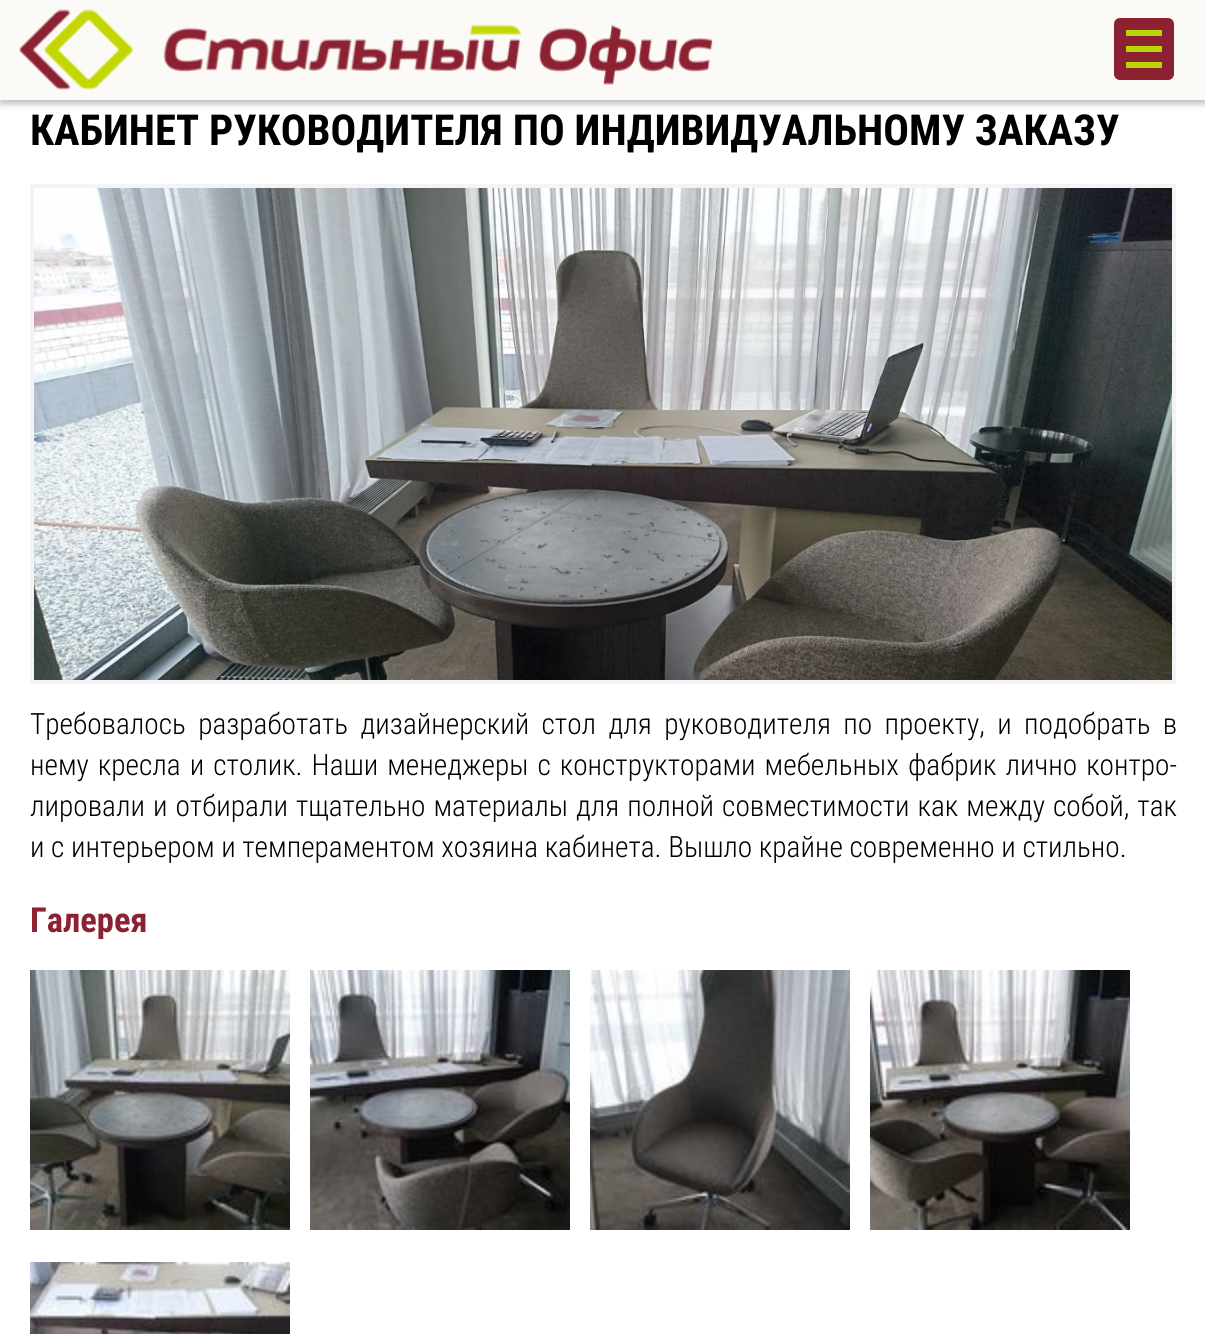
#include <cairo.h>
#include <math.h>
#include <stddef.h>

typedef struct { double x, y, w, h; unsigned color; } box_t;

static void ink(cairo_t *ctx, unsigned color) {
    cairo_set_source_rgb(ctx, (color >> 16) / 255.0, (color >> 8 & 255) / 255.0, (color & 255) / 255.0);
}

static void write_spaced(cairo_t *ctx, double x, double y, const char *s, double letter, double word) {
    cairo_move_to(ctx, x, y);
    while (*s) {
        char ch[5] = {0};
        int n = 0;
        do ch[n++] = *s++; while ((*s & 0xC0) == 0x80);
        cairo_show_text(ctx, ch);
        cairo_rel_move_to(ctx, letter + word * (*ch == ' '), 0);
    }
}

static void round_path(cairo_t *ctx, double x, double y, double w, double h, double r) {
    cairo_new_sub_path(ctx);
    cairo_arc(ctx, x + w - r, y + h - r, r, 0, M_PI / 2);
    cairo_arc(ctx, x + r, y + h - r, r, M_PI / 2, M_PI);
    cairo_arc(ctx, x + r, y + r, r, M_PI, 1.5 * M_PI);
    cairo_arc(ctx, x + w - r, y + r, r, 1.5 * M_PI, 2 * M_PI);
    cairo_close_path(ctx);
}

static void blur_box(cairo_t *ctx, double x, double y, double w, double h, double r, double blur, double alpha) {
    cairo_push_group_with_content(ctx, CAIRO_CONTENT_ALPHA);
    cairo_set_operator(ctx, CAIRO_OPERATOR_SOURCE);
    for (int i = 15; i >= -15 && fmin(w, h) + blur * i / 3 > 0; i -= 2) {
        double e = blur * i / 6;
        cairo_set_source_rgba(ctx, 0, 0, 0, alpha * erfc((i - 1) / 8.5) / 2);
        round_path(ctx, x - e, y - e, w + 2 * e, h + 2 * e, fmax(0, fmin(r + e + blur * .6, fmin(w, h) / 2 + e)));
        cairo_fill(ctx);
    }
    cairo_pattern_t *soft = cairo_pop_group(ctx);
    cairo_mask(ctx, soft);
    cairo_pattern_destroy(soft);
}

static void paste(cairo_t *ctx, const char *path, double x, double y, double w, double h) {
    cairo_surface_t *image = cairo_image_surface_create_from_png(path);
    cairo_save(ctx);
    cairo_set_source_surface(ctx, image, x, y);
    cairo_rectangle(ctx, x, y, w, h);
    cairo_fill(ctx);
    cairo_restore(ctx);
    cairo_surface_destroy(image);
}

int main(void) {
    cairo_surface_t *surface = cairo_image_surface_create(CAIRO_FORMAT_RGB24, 1205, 1334);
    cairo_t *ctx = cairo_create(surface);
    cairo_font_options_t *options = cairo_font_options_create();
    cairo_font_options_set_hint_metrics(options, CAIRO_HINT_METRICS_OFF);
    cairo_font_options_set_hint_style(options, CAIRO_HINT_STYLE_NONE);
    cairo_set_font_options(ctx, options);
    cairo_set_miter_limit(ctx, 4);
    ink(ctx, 0xFFFFFF);
    cairo_paint(ctx);
    ink(ctx, 0x000000);
    blur_box(ctx, 0, 4, 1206, 100, 0, 3, 0.25);
    ink(ctx, 0xFBFAF7);
    cairo_rectangle(ctx, 0, 0, 1205, 100);
    cairo_fill(ctx);
    paste(ctx, "media/1.png", 19, 9, 694, 81);
    ink(ctx, 0x8B2131);
    round_path(ctx, 1114, 18, 60, 62, 6);
    cairo_fill(ctx);
    {
        static const box_t items[] = {
            {1126, 30, 36, 6, 0xBAD405},
            {1126, 46, 36, 6, 0xBAD405},
            {1126, 62, 36, 6, 0xBAD405},
        };
        for (size_t i = 0; i < sizeof items / sizeof *items; i++) {
            ink(ctx, items[i].color);
            cairo_rectangle(ctx, items[i].x, items[i].y, items[i].w, items[i].h);
            cairo_fill(ctx);
        }
    }
    cairo_select_font_face(ctx, "Roboto Condensed", CAIRO_FONT_SLANT_NORMAL, CAIRO_FONT_WEIGHT_BOLD);
    cairo_set_font_size(ctx, 42.7);
    ink(ctx, 0x000000);
    cairo_move_to(ctx, 30, 145);
    cairo_show_text(ctx, "КАБИНЕТ РУКОВОДИТЕЛЯ ПО ИНДИВИДУАЛЬНОМУ ЗАКАЗУ");
    cairo_rectangle(ctx, 32, 186, 1142, 496);
    ink(ctx, 0xF4F4F6);
    cairo_set_line_width(ctx, 4);
    cairo_stroke(ctx);
    paste(ctx, "media/2.png", 34, 188, 1138, 492);
    cairo_select_font_face(ctx, "Roboto Condensed Light", CAIRO_FONT_SLANT_NORMAL, CAIRO_FONT_WEIGHT_NORMAL);
    cairo_set_font_size(ctx, 29.35);
    ink(ctx, 0x000000);
    write_spaced(ctx, 30, 734, "Требовалось разработать дизайнерский стол для руководителя по проекту, и подобрать в", 0, 5.75);
    write_spaced(ctx, 30, 775, "нему кресла и столик. Наши менеджеры с конструкторами мебельных фабрик лично контро-", 0, 2.4);
    write_spaced(ctx, 30, 816, "лировали и отбирали тщательно материалы для полной совместимости как между собой, так", 0, 1.4);
    cairo_move_to(ctx, 30, 857);
    cairo_show_text(ctx, "и с интерьером и темпераментом хозяина кабинета. Вышло крайне современно и стильно.");
    cairo_select_font_face(ctx, "Roboto Condensed", CAIRO_FONT_SLANT_NORMAL, CAIRO_FONT_WEIGHT_BOLD);
    cairo_set_font_size(ctx, 34.5);
    ink(ctx, 0x8B2131);
    cairo_move_to(ctx, 30, 932);
    cairo_show_text(ctx, "Галерея");
    paste(ctx, "media/3.png", 30, 970, 260, 260);
    paste(ctx, "media/4.png", 310, 970, 260, 260);
    paste(ctx, "media/5.png", 590, 970, 260, 260);
    paste(ctx, "media/6.png", 870, 970, 260, 260);
    paste(ctx, "media/7.png", 30, 1262, 260, 72);
    cairo_surface_write_to_png(surface, "image.png");
    cairo_font_options_destroy(options);
    cairo_destroy(ctx);
    cairo_surface_destroy(surface);
    return 0;
}
